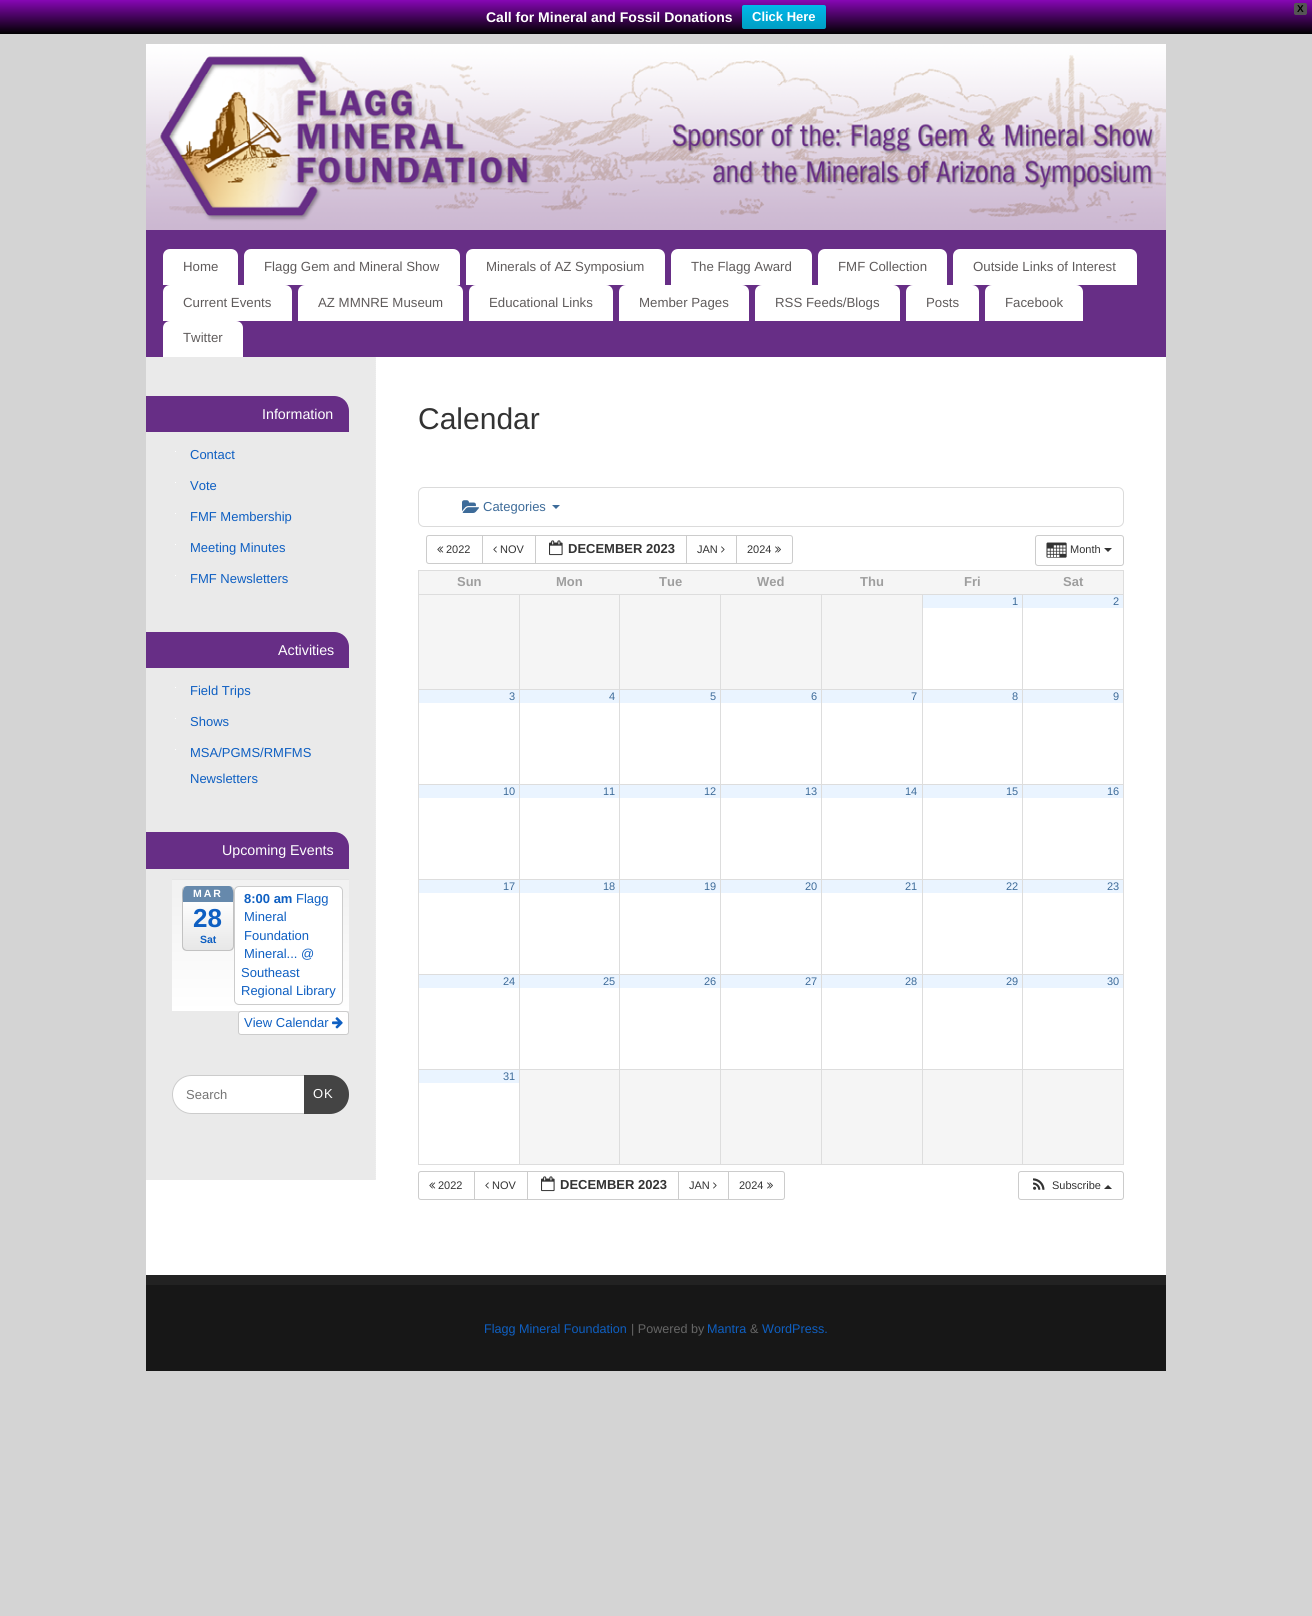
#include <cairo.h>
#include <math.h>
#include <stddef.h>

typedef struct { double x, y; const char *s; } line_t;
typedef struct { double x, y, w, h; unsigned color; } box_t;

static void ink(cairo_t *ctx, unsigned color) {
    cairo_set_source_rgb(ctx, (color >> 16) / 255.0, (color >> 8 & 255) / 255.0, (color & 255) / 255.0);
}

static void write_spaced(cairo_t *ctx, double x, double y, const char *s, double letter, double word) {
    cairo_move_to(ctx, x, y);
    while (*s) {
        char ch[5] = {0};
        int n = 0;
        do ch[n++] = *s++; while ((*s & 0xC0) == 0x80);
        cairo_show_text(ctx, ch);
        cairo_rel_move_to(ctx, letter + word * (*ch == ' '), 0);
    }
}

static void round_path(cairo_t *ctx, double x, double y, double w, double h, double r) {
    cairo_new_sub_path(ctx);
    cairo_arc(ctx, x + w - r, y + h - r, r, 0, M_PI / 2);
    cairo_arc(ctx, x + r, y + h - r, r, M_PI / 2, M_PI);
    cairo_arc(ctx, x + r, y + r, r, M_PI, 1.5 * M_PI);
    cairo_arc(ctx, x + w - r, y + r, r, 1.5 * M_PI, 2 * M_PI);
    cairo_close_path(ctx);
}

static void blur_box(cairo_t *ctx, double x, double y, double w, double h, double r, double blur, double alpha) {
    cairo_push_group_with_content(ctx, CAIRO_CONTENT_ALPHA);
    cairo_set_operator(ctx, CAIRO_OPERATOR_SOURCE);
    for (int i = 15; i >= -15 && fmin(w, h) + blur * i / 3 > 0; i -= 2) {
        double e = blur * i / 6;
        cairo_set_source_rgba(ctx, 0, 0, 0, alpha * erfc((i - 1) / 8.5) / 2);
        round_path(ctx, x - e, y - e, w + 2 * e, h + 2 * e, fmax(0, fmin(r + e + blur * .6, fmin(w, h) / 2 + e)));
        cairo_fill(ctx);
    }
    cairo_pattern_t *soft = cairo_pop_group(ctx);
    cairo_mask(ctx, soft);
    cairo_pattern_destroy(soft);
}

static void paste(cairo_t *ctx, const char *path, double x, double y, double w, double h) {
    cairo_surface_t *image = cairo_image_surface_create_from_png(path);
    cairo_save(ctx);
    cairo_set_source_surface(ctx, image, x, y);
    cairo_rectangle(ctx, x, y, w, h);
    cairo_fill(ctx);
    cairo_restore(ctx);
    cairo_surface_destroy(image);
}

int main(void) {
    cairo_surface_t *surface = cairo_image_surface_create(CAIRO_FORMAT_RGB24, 1312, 1616);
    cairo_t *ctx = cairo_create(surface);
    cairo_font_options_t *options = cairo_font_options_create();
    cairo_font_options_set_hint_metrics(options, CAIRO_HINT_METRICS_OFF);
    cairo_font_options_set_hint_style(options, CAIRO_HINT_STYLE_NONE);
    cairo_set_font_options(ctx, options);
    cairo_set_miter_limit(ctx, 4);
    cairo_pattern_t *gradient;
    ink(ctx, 0xD4D4D4);
    cairo_paint(ctx);
    gradient = cairo_pattern_create_linear(656, 0, 656, 34);
    cairo_pattern_add_color_stop_rgba(gradient, 0, 0.529, 0.027, 0.71, 1);
    cairo_pattern_add_color_stop_rgba(gradient, 1, 0, 0, 0, 1);
    cairo_set_source(ctx, gradient);
    cairo_pattern_destroy(gradient);
    cairo_rectangle(ctx, 0, 0, 1312, 34);
    cairo_fill(ctx);
    ink(ctx, 0x555555);
    round_path(ctx, 1294.5, 3.5, 12, 11, 1.5);
    cairo_fill_preserve(ctx);
    cairo_set_line_width(ctx, 1);
    cairo_stroke(ctx);
    cairo_select_font_face(ctx, "Liberation Sans", CAIRO_FONT_SLANT_NORMAL, CAIRO_FONT_WEIGHT_BOLD);
    cairo_set_font_size(ctx, 10);
    ink(ctx, 0x000000);
    cairo_move_to(ctx, 1297, 12);
    cairo_show_text(ctx, "X");
    cairo_set_font_size(ctx, 14);
    ink(ctx, 0xFFFFFF);
    cairo_move_to(ctx, 486, 22);
    cairo_show_text(ctx, "Call for Mineral and Fossil Donations");
    ink(ctx, 0x000000);
    blur_box(ctx, 742, 6, 84, 24, 2, 1, 0.2);
    gradient = cairo_pattern_create_linear(784, 5, 784, 29);
    cairo_pattern_add_color_stop_rgba(gradient, 0, 0, 0.718, 0.918, 1);
    cairo_pattern_add_color_stop_rgba(gradient, 1, 0, 0.62, 0.765, 1);
    cairo_set_source(ctx, gradient);
    cairo_pattern_destroy(gradient);
    round_path(ctx, 742, 5, 84, 24, 2);
    cairo_fill(ctx);
    cairo_set_font_size(ctx, 13);
    ink(ctx, 0xFFFFFF);
    cairo_move_to(ctx, 752, 21);
    cairo_show_text(ctx, "Click Here");
    ink(ctx, 0x672E86);
    cairo_rectangle(ctx, 146, 230, 1020, 127);
    cairo_fill(ctx);
    paste(ctx, "media/1.png", 146, 44, 1020, 186);
    ink(ctx, 0xFFFFFF);
    cairo_new_path(ctx);
    cairo_move_to(ctx, 170, 249);
    cairo_line_to(ctx, 231, 249);
    cairo_curve_to(ctx, 235, 249, 238, 252, 238, 256);
    cairo_line_to(ctx, 238, 285);
    cairo_line_to(ctx, 163, 285);
    cairo_line_to(ctx, 163, 256);
    cairo_curve_to(ctx, 163, 252, 166, 249, 170, 249);
    cairo_close_path(ctx);
    cairo_fill(ctx);
    cairo_select_font_face(ctx, "Liberation Sans", CAIRO_FONT_SLANT_NORMAL, CAIRO_FONT_WEIGHT_NORMAL);
    cairo_set_font_size(ctx, 13.25);
    ink(ctx, 0x5F5B5B);
    cairo_move_to(ctx, 183, 271);
    cairo_show_text(ctx, "Home");
    ink(ctx, 0xFFFFFF);
    cairo_new_path(ctx);
    cairo_move_to(ctx, 251, 249);
    cairo_line_to(ctx, 453, 249);
    cairo_curve_to(ctx, 457, 249, 460, 252, 460, 256);
    cairo_line_to(ctx, 460, 285);
    cairo_line_to(ctx, 244, 285);
    cairo_line_to(ctx, 244, 256);
    cairo_curve_to(ctx, 244, 252, 247, 249, 251, 249);
    cairo_close_path(ctx);
    cairo_fill(ctx);
    ink(ctx, 0x5F5B5B);
    cairo_move_to(ctx, 264, 271);
    cairo_show_text(ctx, "Flagg Gem and Mineral Show");
    ink(ctx, 0xFFFFFF);
    cairo_new_path(ctx);
    cairo_move_to(ctx, 473, 249);
    cairo_line_to(ctx, 658, 249);
    cairo_curve_to(ctx, 662, 249, 665, 252, 665, 256);
    cairo_line_to(ctx, 665, 285);
    cairo_line_to(ctx, 466, 285);
    cairo_line_to(ctx, 466, 256);
    cairo_curve_to(ctx, 466, 252, 469, 249, 473, 249);
    cairo_close_path(ctx);
    cairo_fill(ctx);
    ink(ctx, 0x5F5B5B);
    cairo_move_to(ctx, 486, 271);
    cairo_show_text(ctx, "Minerals of AZ Symposium");
    ink(ctx, 0xFFFFFF);
    cairo_new_path(ctx);
    cairo_move_to(ctx, 678, 249);
    cairo_line_to(ctx, 805, 249);
    cairo_curve_to(ctx, 809, 249, 812, 252, 812, 256);
    cairo_line_to(ctx, 812, 285);
    cairo_line_to(ctx, 671, 285);
    cairo_line_to(ctx, 671, 256);
    cairo_curve_to(ctx, 671, 252, 674, 249, 678, 249);
    cairo_close_path(ctx);
    cairo_fill(ctx);
    ink(ctx, 0x5F5B5B);
    cairo_move_to(ctx, 691, 271);
    cairo_show_text(ctx, "The Flagg Award");
    ink(ctx, 0xFFFFFF);
    cairo_new_path(ctx);
    cairo_move_to(ctx, 825, 249);
    cairo_line_to(ctx, 940, 249);
    cairo_curve_to(ctx, 944, 249, 947, 252, 947, 256);
    cairo_line_to(ctx, 947, 285);
    cairo_line_to(ctx, 818, 285);
    cairo_line_to(ctx, 818, 256);
    cairo_curve_to(ctx, 818, 252, 821, 249, 825, 249);
    cairo_close_path(ctx);
    cairo_fill(ctx);
    ink(ctx, 0x5F5B5B);
    cairo_move_to(ctx, 838, 271);
    cairo_show_text(ctx, "FMF Collection");
    ink(ctx, 0xFFFFFF);
    cairo_new_path(ctx);
    cairo_move_to(ctx, 960, 249);
    cairo_line_to(ctx, 1130, 249);
    cairo_curve_to(ctx, 1134, 249, 1137, 252, 1137, 256);
    cairo_line_to(ctx, 1137, 285);
    cairo_line_to(ctx, 953, 285);
    cairo_line_to(ctx, 953, 256);
    cairo_curve_to(ctx, 953, 252, 956, 249, 960, 249);
    cairo_close_path(ctx);
    cairo_fill(ctx);
    ink(ctx, 0x5F5B5B);
    cairo_move_to(ctx, 973, 271);
    cairo_show_text(ctx, "Outside Links of Interest");
    ink(ctx, 0xFFFFFF);
    cairo_new_path(ctx);
    cairo_move_to(ctx, 170, 285);
    cairo_line_to(ctx, 285, 285);
    cairo_curve_to(ctx, 289, 285, 292, 288, 292, 292);
    cairo_line_to(ctx, 292, 321);
    cairo_line_to(ctx, 163, 321);
    cairo_line_to(ctx, 163, 292);
    cairo_curve_to(ctx, 163, 288, 166, 285, 170, 285);
    cairo_close_path(ctx);
    cairo_fill(ctx);
    ink(ctx, 0x5F5B5B);
    cairo_move_to(ctx, 183, 307);
    cairo_show_text(ctx, "Current Events");
    ink(ctx, 0xFFFFFF);
    cairo_new_path(ctx);
    cairo_move_to(ctx, 305, 285);
    cairo_line_to(ctx, 456, 285);
    cairo_curve_to(ctx, 460, 285, 463, 288, 463, 292);
    cairo_line_to(ctx, 463, 321);
    cairo_line_to(ctx, 298, 321);
    cairo_line_to(ctx, 298, 292);
    cairo_curve_to(ctx, 298, 288, 301, 285, 305, 285);
    cairo_close_path(ctx);
    cairo_fill(ctx);
    ink(ctx, 0x5F5B5B);
    cairo_move_to(ctx, 318, 307);
    cairo_show_text(ctx, "AZ MMNRE Museum");
    ink(ctx, 0xFFFFFF);
    cairo_new_path(ctx);
    cairo_move_to(ctx, 476, 285);
    cairo_line_to(ctx, 606, 285);
    cairo_curve_to(ctx, 610, 285, 613, 288, 613, 292);
    cairo_line_to(ctx, 613, 321);
    cairo_line_to(ctx, 469, 321);
    cairo_line_to(ctx, 469, 292);
    cairo_curve_to(ctx, 469, 288, 472, 285, 476, 285);
    cairo_close_path(ctx);
    cairo_fill(ctx);
    ink(ctx, 0x5F5B5B);
    cairo_move_to(ctx, 489, 307);
    cairo_show_text(ctx, "Educational Links");
    ink(ctx, 0xFFFFFF);
    cairo_new_path(ctx);
    cairo_move_to(ctx, 626, 285);
    cairo_line_to(ctx, 742, 285);
    cairo_curve_to(ctx, 746, 285, 749, 288, 749, 292);
    cairo_line_to(ctx, 749, 321);
    cairo_line_to(ctx, 619, 321);
    cairo_line_to(ctx, 619, 292);
    cairo_curve_to(ctx, 619, 288, 622, 285, 626, 285);
    cairo_close_path(ctx);
    cairo_fill(ctx);
    ink(ctx, 0x5F5B5B);
    cairo_move_to(ctx, 639, 307);
    cairo_show_text(ctx, "Member Pages");
    ink(ctx, 0xFFFFFF);
    cairo_new_path(ctx);
    cairo_move_to(ctx, 762, 285);
    cairo_line_to(ctx, 893, 285);
    cairo_curve_to(ctx, 897, 285, 900, 288, 900, 292);
    cairo_line_to(ctx, 900, 321);
    cairo_line_to(ctx, 755, 321);
    cairo_line_to(ctx, 755, 292);
    cairo_curve_to(ctx, 755, 288, 758, 285, 762, 285);
    cairo_close_path(ctx);
    cairo_fill(ctx);
    ink(ctx, 0x5F5B5B);
    cairo_move_to(ctx, 775, 307);
    cairo_show_text(ctx, "RSS Feeds/Blogs");
    ink(ctx, 0xFFFFFF);
    cairo_new_path(ctx);
    cairo_move_to(ctx, 913, 285);
    cairo_line_to(ctx, 972, 285);
    cairo_curve_to(ctx, 976, 285, 979, 288, 979, 292);
    cairo_line_to(ctx, 979, 321);
    cairo_line_to(ctx, 906, 321);
    cairo_line_to(ctx, 906, 292);
    cairo_curve_to(ctx, 906, 288, 909, 285, 913, 285);
    cairo_close_path(ctx);
    cairo_fill(ctx);
    ink(ctx, 0x5F5B5B);
    cairo_move_to(ctx, 926, 307);
    cairo_show_text(ctx, "Posts");
    ink(ctx, 0xFFFFFF);
    cairo_new_path(ctx);
    cairo_move_to(ctx, 992, 285);
    cairo_line_to(ctx, 1076, 285);
    cairo_curve_to(ctx, 1080, 285, 1083, 288, 1083, 292);
    cairo_line_to(ctx, 1083, 321);
    cairo_line_to(ctx, 985, 321);
    cairo_line_to(ctx, 985, 292);
    cairo_curve_to(ctx, 985, 288, 988, 285, 992, 285);
    cairo_close_path(ctx);
    cairo_fill(ctx);
    ink(ctx, 0x5F5B5B);
    cairo_move_to(ctx, 1005, 307);
    cairo_show_text(ctx, "Facebook");
    ink(ctx, 0xFFFFFF);
    cairo_new_path(ctx);
    cairo_move_to(ctx, 170, 321);
    cairo_line_to(ctx, 236, 321);
    cairo_curve_to(ctx, 240, 321, 243, 324, 243, 328);
    cairo_line_to(ctx, 243, 357);
    cairo_line_to(ctx, 163, 357);
    cairo_line_to(ctx, 163, 328);
    cairo_curve_to(ctx, 163, 324, 166, 321, 170, 321);
    cairo_close_path(ctx);
    cairo_fill(ctx);
    ink(ctx, 0x5F5B5B);
    cairo_move_to(ctx, 183, 342);
    cairo_show_text(ctx, "Twitter");
    ink(ctx, 0xFFFFFF);
    cairo_rectangle(ctx, 146, 357, 1020, 918);
    cairo_fill(ctx);
    ink(ctx, 0xEAEAEA);
    cairo_rectangle(ctx, 146, 357, 230, 823);
    cairo_fill(ctx);
    cairo_new_path(ctx);
    cairo_move_to(ctx, 375.5, 357);
    cairo_line_to(ctx, 375.5, 1180);
    ink(ctx, 0xEEEEEE);
    cairo_set_dash(ctx, (double[]){1, 1}, 2, 0);
    cairo_stroke(ctx);
    ink(ctx, 0x672E86);
    cairo_new_path(ctx);
    cairo_move_to(ctx, 146, 396);
    cairo_line_to(ctx, 334, 396);
    cairo_curve_to(ctx, 342.5, 396, 349, 402.5, 349, 411);
    cairo_line_to(ctx, 349, 432);
    cairo_line_to(ctx, 146, 432);
    cairo_close_path(ctx);
    cairo_fill(ctx);
    cairo_set_font_size(ctx, 14.25);
    ink(ctx, 0xFFFFFF);
    cairo_move_to(ctx, 262, 419);
    cairo_show_text(ctx, "Information");
    cairo_rectangle(ctx, 175, 451, 1, 1);
    cairo_fill(ctx);
    cairo_set_font_size(ctx, 13);
    ink(ctx, 0x0E5FC2);
    cairo_move_to(ctx, 190, 459);
    cairo_show_text(ctx, "Contact");
    ink(ctx, 0xFFFFFF);
    cairo_rectangle(ctx, 175, 482, 1, 1);
    cairo_fill(ctx);
    ink(ctx, 0x0E5FC2);
    cairo_move_to(ctx, 190, 490);
    cairo_show_text(ctx, "Vote");
    ink(ctx, 0xFFFFFF);
    cairo_rectangle(ctx, 175, 513, 1, 1);
    cairo_fill(ctx);
    ink(ctx, 0x0E5FC2);
    cairo_move_to(ctx, 190, 521);
    cairo_show_text(ctx, "FMF Membership");
    ink(ctx, 0xFFFFFF);
    cairo_rectangle(ctx, 175, 544, 1, 1);
    cairo_fill(ctx);
    ink(ctx, 0x0E5FC2);
    cairo_move_to(ctx, 190, 552);
    cairo_show_text(ctx, "Meeting Minutes");
    ink(ctx, 0xFFFFFF);
    cairo_rectangle(ctx, 175, 575, 1, 1);
    cairo_fill(ctx);
    ink(ctx, 0x0E5FC2);
    cairo_move_to(ctx, 190, 583);
    cairo_show_text(ctx, "FMF Newsletters");
    ink(ctx, 0x672E86);
    cairo_new_path(ctx);
    cairo_move_to(ctx, 146, 632);
    cairo_line_to(ctx, 334, 632);
    cairo_curve_to(ctx, 342.5, 632, 349, 638.5, 349, 647);
    cairo_line_to(ctx, 349, 668);
    cairo_line_to(ctx, 146, 668);
    cairo_close_path(ctx);
    cairo_fill(ctx);
    cairo_set_font_size(ctx, 14.25);
    ink(ctx, 0xFFFFFF);
    cairo_move_to(ctx, 278, 655);
    cairo_show_text(ctx, "Activities");
    cairo_rectangle(ctx, 175, 687, 1, 1);
    cairo_fill(ctx);
    cairo_set_font_size(ctx, 13);
    ink(ctx, 0x0E5FC2);
    cairo_move_to(ctx, 190, 695);
    cairo_show_text(ctx, "Field Trips");
    ink(ctx, 0xFFFFFF);
    cairo_rectangle(ctx, 175, 718, 1, 1);
    cairo_fill(ctx);
    ink(ctx, 0x0E5FC2);
    cairo_move_to(ctx, 190, 726);
    cairo_show_text(ctx, "Shows");
    ink(ctx, 0xFFFFFF);
    cairo_rectangle(ctx, 175, 749, 1, 1);
    cairo_fill(ctx);
    ink(ctx, 0x0E5FC2);
    cairo_move_to(ctx, 190, 757);
    cairo_show_text(ctx, "MSA/PGMS/RMFMS");
    cairo_move_to(ctx, 190, 783);
    cairo_show_text(ctx, "Newsletters");
    ink(ctx, 0x672E86);
    cairo_new_path(ctx);
    cairo_move_to(ctx, 146, 832);
    cairo_line_to(ctx, 334, 832);
    cairo_curve_to(ctx, 342.5, 832, 349, 838.5, 349, 847);
    cairo_line_to(ctx, 349, 869);
    cairo_line_to(ctx, 146, 869);
    cairo_close_path(ctx);
    cairo_fill(ctx);
    cairo_set_font_size(ctx, 14.25);
    ink(ctx, 0xFFFFFF);
    cairo_move_to(ctx, 222, 855);
    cairo_show_text(ctx, "Upcoming Events");
    gradient = cairo_pattern_create_linear(261, 880, 261, 1011);
    cairo_pattern_add_color_stop_rgba(gradient, 0, 0.949, 0.949, 0.949, 1);
    cairo_pattern_add_color_stop_rgba(gradient, 0.1, 0.949, 0.949, 0.949, 1);
    cairo_pattern_add_color_stop_rgba(gradient, 1, 1, 1, 1, 1);
    cairo_set_source(ctx, gradient);
    cairo_pattern_destroy(gradient);
    cairo_rectangle(ctx, 172, 880, 177, 131);
    cairo_fill(ctx);
    ink(ctx, 0xE5E5E5);
    cairo_rectangle(ctx, 172, 879, 177, 1);
    cairo_fill(ctx);
    cairo_save(ctx);
    round_path(ctx, 182, 886, 52, 65, 5);
    cairo_clip(ctx);
    gradient = cairo_pattern_create_linear(208, 886, 208, 950);
    cairo_pattern_add_color_stop_rgba(gradient, 0, 1, 1, 1, 1);
    cairo_pattern_add_color_stop_rgba(gradient, 0.2, 1, 1, 1, 1);
    cairo_pattern_add_color_stop_rgba(gradient, 1, 0.906, 0.906, 0.906, 1);
    cairo_set_source(ctx, gradient);
    cairo_pattern_destroy(gradient);
    cairo_rectangle(ctx, 183, 886, 50, 64);
    cairo_fill(ctx);
    cairo_restore(ctx);
    ink(ctx, 0xC2C2C2);
    cairo_set_fill_rule(ctx, CAIRO_FILL_RULE_EVEN_ODD);
    cairo_new_path(ctx);
    cairo_move_to(ctx, 187, 886);
    cairo_line_to(ctx, 229, 886);
    cairo_curve_to(ctx, 232, 886, 234, 888, 234, 891);
    cairo_line_to(ctx, 234, 946);
    cairo_curve_to(ctx, 234, 949, 232, 951, 229, 951);
    cairo_line_to(ctx, 187, 951);
    cairo_curve_to(ctx, 184, 951, 182, 949, 182, 946);
    cairo_line_to(ctx, 182, 891);
    cairo_curve_to(ctx, 182, 888, 184, 886, 187, 886);
    cairo_close_path(ctx);
    cairo_move_to(ctx, 187, 886);
    cairo_line_to(ctx, 229, 886);
    cairo_curve_to(ctx, 231, 886, 233, 888, 233, 891);
    cairo_line_to(ctx, 233, 946);
    cairo_curve_to(ctx, 233, 948, 231, 950, 229, 950);
    cairo_line_to(ctx, 187, 950);
    cairo_curve_to(ctx, 185, 950, 183, 948, 183, 946);
    cairo_line_to(ctx, 183, 891);
    cairo_curve_to(ctx, 183, 888, 185, 886, 187, 886);
    cairo_close_path(ctx);
    cairo_fill(ctx);
    ink(ctx, 0x6689AC);
    cairo_set_fill_rule(ctx, CAIRO_FILL_RULE_WINDING);
    cairo_new_path(ctx);
    cairo_move_to(ctx, 187, 886);
    cairo_curve_to(ctx, 181, 886, 183, 899, 183, 902);
    cairo_line_to(ctx, 233, 902);
    cairo_curve_to(ctx, 233, 899, 235, 886, 229, 886);
    cairo_close_path(ctx);
    cairo_fill(ctx);
    cairo_select_font_face(ctx, "Liberation Sans", CAIRO_FONT_SLANT_NORMAL, CAIRO_FONT_WEIGHT_BOLD);
    cairo_set_font_size(ctx, 10.5);
    ink(ctx, 0xFFFFFF);
    write_spaced(ctx, 193, 897, "MAR", 2, 0);
    cairo_set_font_size(ctx, 26);
    ink(ctx, 0x0E5FC2);
    cairo_move_to(ctx, 193, 927);
    cairo_show_text(ctx, "28");
    cairo_set_font_size(ctx, 10.5);
    cairo_move_to(ctx, 200, 943);
    cairo_show_text(ctx, "Sat");
    ink(ctx, 0xFFFFFF);
    round_path(ctx, 234.5, 886.5, 108, 118, 4.5);
    cairo_fill_preserve(ctx);
    ink(ctx, 0xCCCCCC);
    cairo_set_dash(ctx, NULL, 0, 0);
    cairo_stroke(ctx);
    cairo_set_font_size(ctx, 13);
    ink(ctx, 0x0E5FC2);
    cairo_move_to(ctx, 244, 903);
    cairo_show_text(ctx, "8:00 am");
    cairo_select_font_face(ctx, "Liberation Sans", CAIRO_FONT_SLANT_NORMAL, CAIRO_FONT_WEIGHT_NORMAL);
    {
        static const line_t items[] = {
            {296, 903, "Flagg"},
            {244, 921, "Mineral"},
            {244, 940, "Foundation"},
            {244, 958, "Mineral... @"},
            {241, 977, "Southeast"},
            {241, 995, "Regional Library"},
        };
        for (size_t i = 0; i < sizeof items / sizeof *items; i++) {
            cairo_move_to(ctx, items[i].x, items[i].y);
            cairo_show_text(ctx, items[i].s);
        }
    }
    ink(ctx, 0xFFFFFF);
    round_path(ctx, 238.5, 1011.5, 110, 23, 2.5);
    cairo_fill_preserve(ctx);
    ink(ctx, 0xCCCCCC);
    cairo_stroke(ctx);
    ink(ctx, 0x0E5FC2);
    cairo_move_to(ctx, 244, 1027);
    cairo_show_text(ctx, "View Calendar");
    paste(ctx, "media/2.png", 332, 1017, 11, 12);
    ink(ctx, 0xFFFFFF);
    round_path(ctx, 172.5, 1075.5, 176, 38, 19);
    cairo_fill_preserve(ctx);
    ink(ctx, 0xCCCCCC);
    cairo_stroke(ctx);
    ink(ctx, 0x757575);
    cairo_move_to(ctx, 186, 1099);
    cairo_show_text(ctx, "Search");
    ink(ctx, 0x444444);
    cairo_new_path(ctx);
    cairo_move_to(ctx, 304, 1075);
    cairo_line_to(ctx, 329.5, 1075);
    cairo_curve_to(ctx, 340.5, 1075, 349, 1083.5, 349, 1094.5);
    cairo_curve_to(ctx, 349, 1105.5, 340.5, 1114, 329.5, 1114);
    cairo_line_to(ctx, 304, 1114);
    cairo_close_path(ctx);
    cairo_fill(ctx);
    ink(ctx, 0xFFFFFF);
    write_spaced(ctx, 313, 1098, "OK", 1, 0);
    cairo_set_font_size(ctx, 30);
    ink(ctx, 0x333333);
    cairo_move_to(ctx, 418, 429);
    cairo_show_text(ctx, "Calendar");
    round_path(ctx, 418.5, 487.5, 705, 39, 5.5);
    ink(ctx, 0xDBDBDB);
    cairo_stroke(ctx);
    paste(ctx, "media/3.png", 462, 500, 17, 13);
    cairo_set_font_size(ctx, 13);
    ink(ctx, 0x3D6B99);
    cairo_move_to(ctx, 483, 511);
    cairo_show_text(ctx, "Categories");
    cairo_new_path(ctx);
    cairo_move_to(ctx, 552, 505);
    cairo_line_to(ctx, 560, 505);
    cairo_line_to(ctx, 556, 509);
    cairo_close_path(ctx);
    cairo_fill(ctx);
    cairo_new_path(ctx);
    cairo_move_to(ctx, 429, 535.5);
    cairo_line_to(ctx, 482.5, 535.5);
    cairo_line_to(ctx, 482.5, 563.5);
    cairo_line_to(ctx, 429, 563.5);
    cairo_curve_to(ctx, 427.5, 563.5, 426.5, 562.5, 426.5, 561);
    cairo_line_to(ctx, 426.5, 538);
    cairo_curve_to(ctx, 426.5, 536.5, 427.5, 535.5, 429, 535.5);
    cairo_close_path(ctx);
    ink(ctx, 0xCCCCCC);
    cairo_stroke(ctx);
    paste(ctx, "media/4.png", 437, 546, 7, 7);
    cairo_set_font_size(ctx, 11);
    ink(ctx, 0x333333);
    cairo_move_to(ctx, 446, 553);
    cairo_show_text(ctx, "2022");
    cairo_rectangle(ctx, 482.5, 535.5, 53, 28);
    ink(ctx, 0xCCCCCC);
    cairo_stroke(ctx);
    paste(ctx, "media/5.png", 493, 546, 4, 7);
    ink(ctx, 0x333333);
    cairo_move_to(ctx, 500, 553);
    cairo_show_text(ctx, "NOV");
    cairo_rectangle(ctx, 535.5, 535.5, 151, 28);
    ink(ctx, 0xCCCCCC);
    cairo_stroke(ctx);
    paste(ctx, "media/6.png", 549, 540, 14, 16);
    cairo_select_font_face(ctx, "Liberation Sans", CAIRO_FONT_SLANT_NORMAL, CAIRO_FONT_WEIGHT_BOLD);
    cairo_set_font_size(ctx, 13);
    ink(ctx, 0x333333);
    cairo_move_to(ctx, 568, 553);
    cairo_show_text(ctx, "DECEMBER 2023");
    cairo_rectangle(ctx, 686.5, 535.5, 50, 28);
    ink(ctx, 0xCCCCCC);
    cairo_stroke(ctx);
    cairo_select_font_face(ctx, "Liberation Sans", CAIRO_FONT_SLANT_NORMAL, CAIRO_FONT_WEIGHT_NORMAL);
    cairo_set_font_size(ctx, 11);
    ink(ctx, 0x333333);
    cairo_move_to(ctx, 697, 553);
    cairo_show_text(ctx, "JAN");
    paste(ctx, "media/7.png", 721, 546, 4, 7);
    ink(ctx, 0xFFFFFF);
    cairo_new_path(ctx);
    cairo_move_to(ctx, 736.5, 535.5);
    cairo_line_to(ctx, 790, 535.5);
    cairo_curve_to(ctx, 791.5, 535.5, 792.5, 536.5, 792.5, 538);
    cairo_line_to(ctx, 792.5, 561);
    cairo_curve_to(ctx, 792.5, 562.5, 791.5, 563.5, 790, 563.5);
    cairo_line_to(ctx, 736.5, 563.5);
    cairo_close_path(ctx);
    cairo_fill_preserve(ctx);
    ink(ctx, 0xCCCCCC);
    cairo_stroke(ctx);
    ink(ctx, 0x333333);
    cairo_move_to(ctx, 747, 553);
    cairo_show_text(ctx, "2024");
    paste(ctx, "media/8.png", 775, 546, 6, 7);
    round_path(ctx, 1035.5, 535.5, 88, 30, 2.5);
    ink(ctx, 0xCCCCCC);
    cairo_stroke(ctx);
    paste(ctx, "media/9.png", 1046, 542, 21, 16);
    ink(ctx, 0x333333);
    cairo_move_to(ctx, 1070, 553);
    cairo_show_text(ctx, "Month");
    cairo_new_path(ctx);
    cairo_move_to(ctx, 1104, 548);
    cairo_line_to(ctx, 1112, 548);
    cairo_line_to(ctx, 1108, 552);
    cairo_close_path(ctx);
    cairo_fill(ctx);
    {
        static const box_t items[] = {
            {418, 570, 706, 1, 0xDDDDDD},
            {1123, 570, 1, 595, 0xDDDDDD},
            {418, 1164, 706, 1, 0xDDDDDD},
            {418, 570, 1, 595, 0xDDDDDD},
            {419, 571, 704, 23, 0xF5F5F5},
        };
        for (size_t i = 0; i < sizeof items / sizeof *items; i++) {
            ink(ctx, items[i].color);
            cairo_rectangle(ctx, items[i].x, items[i].y, items[i].w, items[i].h);
            cairo_fill(ctx);
        }
    }
    cairo_select_font_face(ctx, "Liberation Sans", CAIRO_FONT_SLANT_NORMAL, CAIRO_FONT_WEIGHT_BOLD);
    cairo_set_font_size(ctx, 13);
    ink(ctx, 0x9E9E9E);
    {
        static const line_t items[] = {
            {457, 586, "Sun"},
            {556, 586, "Mon"},
            {659, 586, "Tue"},
            {757, 586, "Wed"},
            {860, 586, "Thu"},
            {964, 586, "Fri"},
            {1063, 586, "Sat"},
        };
        for (size_t i = 0; i < sizeof items / sizeof *items; i++) {
            cairo_move_to(ctx, items[i].x, items[i].y);
            cairo_show_text(ctx, items[i].s);
        }
    }
    {
        static const box_t items[] = {
            {419, 595, 100, 94, 0xF5F5F5},
            {1022, 594, 102, 1, 0xDDDDDD},
            {1022, 689, 102, 1, 0xDDDDDD},
            {1022, 784, 102, 1, 0xDDDDDD},
            {1022, 879, 102, 1, 0xDDDDDD},
            {1022, 974, 102, 1, 0xDDDDDD},
            {1022, 1069, 102, 1, 0xDDDDDD},
            {1022, 1069, 1, 96, 0xDDDDDD},
            {922, 1069, 101, 1, 0xDDDDDD},
            {1022, 974, 1, 96, 0xDDDDDD},
            {922, 974, 101, 1, 0xDDDDDD},
            {1022, 879, 1, 96, 0xDDDDDD},
            {922, 879, 101, 1, 0xDDDDDD},
            {1022, 784, 1, 96, 0xDDDDDD},
            {922, 784, 101, 1, 0xDDDDDD},
            {1022, 689, 1, 96, 0xDDDDDD},
            {922, 689, 101, 1, 0xDDDDDD},
            {1022, 594, 1, 96, 0xDDDDDD},
            {922, 594, 101, 1, 0xDDDDDD},
            {922, 1069, 1, 96, 0xDDDDDD},
            {821, 1069, 102, 1, 0xDDDDDD},
            {922, 974, 1, 96, 0xDDDDDD},
            {821, 974, 102, 1, 0xDDDDDD},
            {922, 879, 1, 96, 0xDDDDDD},
            {821, 879, 102, 1, 0xDDDDDD},
            {922, 784, 1, 96, 0xDDDDDD},
            {821, 784, 102, 1, 0xDDDDDD},
            {922, 689, 1, 96, 0xDDDDDD},
            {821, 689, 102, 1, 0xDDDDDD},
            {922, 594, 1, 96, 0xDDDDDD},
            {821, 594, 102, 1, 0xDDDDDD},
            {821, 1069, 1, 96, 0xDDDDDD},
            {720, 1069, 102, 1, 0xDDDDDD},
            {821, 974, 1, 96, 0xDDDDDD},
            {720, 974, 102, 1, 0xDDDDDD},
            {821, 879, 1, 96, 0xDDDDDD},
            {720, 879, 102, 1, 0xDDDDDD},
            {821, 784, 1, 96, 0xDDDDDD},
            {720, 784, 102, 1, 0xDDDDDD},
            {821, 689, 1, 96, 0xDDDDDD},
            {720, 689, 102, 1, 0xDDDDDD},
            {821, 594, 1, 96, 0xDDDDDD},
            {720, 594, 102, 1, 0xDDDDDD},
            {720, 1069, 1, 96, 0xDDDDDD},
            {619, 1069, 102, 1, 0xDDDDDD},
            {720, 974, 1, 96, 0xDDDDDD},
            {619, 974, 102, 1, 0xDDDDDD},
            {720, 879, 1, 96, 0xDDDDDD},
            {619, 879, 102, 1, 0xDDDDDD},
            {720, 784, 1, 96, 0xDDDDDD},
            {619, 784, 102, 1, 0xDDDDDD},
            {720, 689, 1, 96, 0xDDDDDD},
            {619, 689, 102, 1, 0xDDDDDD},
            {720, 594, 1, 96, 0xDDDDDD},
            {619, 594, 102, 1, 0xDDDDDD},
            {619, 1069, 1, 96, 0xDDDDDD},
            {519, 1069, 101, 1, 0xDDDDDD},
            {619, 974, 1, 96, 0xDDDDDD},
            {519, 974, 101, 1, 0xDDDDDD},
            {619, 879, 1, 96, 0xDDDDDD},
            {519, 879, 101, 1, 0xDDDDDD},
            {619, 784, 1, 96, 0xDDDDDD},
            {519, 784, 101, 1, 0xDDDDDD},
            {619, 689, 1, 96, 0xDDDDDD},
            {519, 689, 101, 1, 0xDDDDDD},
            {619, 594, 1, 96, 0xDDDDDD},
            {519, 594, 101, 1, 0xDDDDDD},
            {519, 1069, 1, 96, 0xDDDDDD},
            {418, 1069, 102, 1, 0xDDDDDD},
            {519, 974, 1, 96, 0xDDDDDD},
            {418, 974, 102, 1, 0xDDDDDD},
            {519, 879, 1, 96, 0xDDDDDD},
            {418, 879, 102, 1, 0xDDDDDD},
            {519, 784, 1, 96, 0xDDDDDD},
            {418, 784, 102, 1, 0xDDDDDD},
            {519, 689, 1, 96, 0xDDDDDD},
            {418, 689, 102, 1, 0xDDDDDD},
            {519, 594, 1, 96, 0xDDDDDD},
            {418, 594, 102, 1, 0xDDDDDD},
            {520, 595, 99, 94, 0xF5F5F5},
            {620, 595, 100, 94, 0xF5F5F5},
            {721, 595, 100, 94, 0xF5F5F5},
            {822, 595, 100, 94, 0xF5F5F5},
            {923, 595, 99, 13, 0xEAF4FF},
        };
        for (size_t i = 0; i < sizeof items / sizeof *items; i++) {
            ink(ctx, items[i].color);
            cairo_rectangle(ctx, items[i].x, items[i].y, items[i].w, items[i].h);
            cairo_fill(ctx);
        }
    }
    cairo_select_font_face(ctx, "Liberation Sans", CAIRO_FONT_SLANT_NORMAL, CAIRO_FONT_WEIGHT_NORMAL);
    cairo_set_font_size(ctx, 11);
    ink(ctx, 0x3D6B99);
    cairo_move_to(ctx, 1012, 605);
    cairo_show_text(ctx, "1");
    ink(ctx, 0xEAF4FF);
    cairo_rectangle(ctx, 1023, 595, 100, 13);
    cairo_fill(ctx);
    ink(ctx, 0x3D6B99);
    cairo_move_to(ctx, 1113, 605);
    cairo_show_text(ctx, "2");
    ink(ctx, 0xEAF4FF);
    cairo_rectangle(ctx, 419, 690, 100, 13);
    cairo_fill(ctx);
    ink(ctx, 0x3D6B99);
    cairo_move_to(ctx, 509, 700);
    cairo_show_text(ctx, "3");
    ink(ctx, 0xEAF4FF);
    cairo_rectangle(ctx, 520, 690, 99, 13);
    cairo_fill(ctx);
    ink(ctx, 0x3D6B99);
    cairo_move_to(ctx, 609, 700);
    cairo_show_text(ctx, "4");
    ink(ctx, 0xEAF4FF);
    cairo_rectangle(ctx, 620, 690, 100, 13);
    cairo_fill(ctx);
    ink(ctx, 0x3D6B99);
    cairo_move_to(ctx, 710, 700);
    cairo_show_text(ctx, "5");
    ink(ctx, 0xEAF4FF);
    cairo_rectangle(ctx, 721, 690, 100, 13);
    cairo_fill(ctx);
    ink(ctx, 0x3D6B99);
    cairo_move_to(ctx, 811, 700);
    cairo_show_text(ctx, "6");
    ink(ctx, 0xEAF4FF);
    cairo_rectangle(ctx, 822, 690, 100, 13);
    cairo_fill(ctx);
    ink(ctx, 0x3D6B99);
    cairo_move_to(ctx, 911, 700);
    cairo_show_text(ctx, "7");
    ink(ctx, 0xEAF4FF);
    cairo_rectangle(ctx, 923, 690, 99, 13);
    cairo_fill(ctx);
    ink(ctx, 0x3D6B99);
    cairo_move_to(ctx, 1012, 700);
    cairo_show_text(ctx, "8");
    ink(ctx, 0xEAF4FF);
    cairo_rectangle(ctx, 1023, 690, 100, 13);
    cairo_fill(ctx);
    ink(ctx, 0x3D6B99);
    cairo_move_to(ctx, 1113, 700);
    cairo_show_text(ctx, "9");
    ink(ctx, 0xEAF4FF);
    cairo_rectangle(ctx, 419, 785, 100, 13);
    cairo_fill(ctx);
    ink(ctx, 0x3D6B99);
    cairo_move_to(ctx, 503, 795);
    cairo_show_text(ctx, "10");
    ink(ctx, 0xEAF4FF);
    cairo_rectangle(ctx, 520, 785, 99, 13);
    cairo_fill(ctx);
    ink(ctx, 0x3D6B99);
    cairo_move_to(ctx, 603, 795);
    cairo_show_text(ctx, "11");
    ink(ctx, 0xEAF4FF);
    cairo_rectangle(ctx, 620, 785, 100, 13);
    cairo_fill(ctx);
    ink(ctx, 0x3D6B99);
    cairo_move_to(ctx, 704, 795);
    cairo_show_text(ctx, "12");
    ink(ctx, 0xEAF4FF);
    cairo_rectangle(ctx, 721, 785, 100, 13);
    cairo_fill(ctx);
    ink(ctx, 0x3D6B99);
    cairo_move_to(ctx, 805, 795);
    cairo_show_text(ctx, "13");
    ink(ctx, 0xEAF4FF);
    cairo_rectangle(ctx, 822, 785, 100, 13);
    cairo_fill(ctx);
    ink(ctx, 0x3D6B99);
    cairo_move_to(ctx, 905, 795);
    cairo_show_text(ctx, "14");
    ink(ctx, 0xEAF4FF);
    cairo_rectangle(ctx, 923, 785, 99, 13);
    cairo_fill(ctx);
    ink(ctx, 0x3D6B99);
    cairo_move_to(ctx, 1006, 795);
    cairo_show_text(ctx, "15");
    ink(ctx, 0xEAF4FF);
    cairo_rectangle(ctx, 1023, 785, 100, 13);
    cairo_fill(ctx);
    ink(ctx, 0x3D6B99);
    cairo_move_to(ctx, 1107, 795);
    cairo_show_text(ctx, "16");
    ink(ctx, 0xEAF4FF);
    cairo_rectangle(ctx, 419, 880, 100, 13);
    cairo_fill(ctx);
    ink(ctx, 0x3D6B99);
    cairo_move_to(ctx, 503, 890);
    cairo_show_text(ctx, "17");
    ink(ctx, 0xEAF4FF);
    cairo_rectangle(ctx, 520, 880, 99, 13);
    cairo_fill(ctx);
    ink(ctx, 0x3D6B99);
    cairo_move_to(ctx, 603, 890);
    cairo_show_text(ctx, "18");
    ink(ctx, 0xEAF4FF);
    cairo_rectangle(ctx, 620, 880, 100, 13);
    cairo_fill(ctx);
    ink(ctx, 0x3D6B99);
    cairo_move_to(ctx, 704, 890);
    cairo_show_text(ctx, "19");
    ink(ctx, 0xEAF4FF);
    cairo_rectangle(ctx, 721, 880, 100, 13);
    cairo_fill(ctx);
    ink(ctx, 0x3D6B99);
    cairo_move_to(ctx, 805, 890);
    cairo_show_text(ctx, "20");
    ink(ctx, 0xEAF4FF);
    cairo_rectangle(ctx, 822, 880, 100, 13);
    cairo_fill(ctx);
    ink(ctx, 0x3D6B99);
    cairo_move_to(ctx, 905, 890);
    cairo_show_text(ctx, "21");
    ink(ctx, 0xEAF4FF);
    cairo_rectangle(ctx, 923, 880, 99, 13);
    cairo_fill(ctx);
    ink(ctx, 0x3D6B99);
    cairo_move_to(ctx, 1006, 890);
    cairo_show_text(ctx, "22");
    ink(ctx, 0xEAF4FF);
    cairo_rectangle(ctx, 1023, 880, 100, 13);
    cairo_fill(ctx);
    ink(ctx, 0x3D6B99);
    cairo_move_to(ctx, 1107, 890);
    cairo_show_text(ctx, "23");
    ink(ctx, 0xEAF4FF);
    cairo_rectangle(ctx, 419, 975, 100, 13);
    cairo_fill(ctx);
    ink(ctx, 0x3D6B99);
    cairo_move_to(ctx, 503, 985);
    cairo_show_text(ctx, "24");
    ink(ctx, 0xEAF4FF);
    cairo_rectangle(ctx, 520, 975, 99, 13);
    cairo_fill(ctx);
    ink(ctx, 0x3D6B99);
    cairo_move_to(ctx, 603, 985);
    cairo_show_text(ctx, "25");
    ink(ctx, 0xEAF4FF);
    cairo_rectangle(ctx, 620, 975, 100, 13);
    cairo_fill(ctx);
    ink(ctx, 0x3D6B99);
    cairo_move_to(ctx, 704, 985);
    cairo_show_text(ctx, "26");
    ink(ctx, 0xEAF4FF);
    cairo_rectangle(ctx, 721, 975, 100, 13);
    cairo_fill(ctx);
    ink(ctx, 0x3D6B99);
    cairo_move_to(ctx, 805, 985);
    cairo_show_text(ctx, "27");
    ink(ctx, 0xEAF4FF);
    cairo_rectangle(ctx, 822, 975, 100, 13);
    cairo_fill(ctx);
    ink(ctx, 0x3D6B99);
    cairo_move_to(ctx, 905, 985);
    cairo_show_text(ctx, "28");
    ink(ctx, 0xEAF4FF);
    cairo_rectangle(ctx, 923, 975, 99, 13);
    cairo_fill(ctx);
    ink(ctx, 0x3D6B99);
    cairo_move_to(ctx, 1006, 985);
    cairo_show_text(ctx, "29");
    ink(ctx, 0xEAF4FF);
    cairo_rectangle(ctx, 1023, 975, 100, 13);
    cairo_fill(ctx);
    ink(ctx, 0x3D6B99);
    cairo_move_to(ctx, 1107, 985);
    cairo_show_text(ctx, "30");
    ink(ctx, 0xEAF4FF);
    cairo_rectangle(ctx, 419, 1070, 100, 13);
    cairo_fill(ctx);
    ink(ctx, 0x3D6B99);
    cairo_move_to(ctx, 503, 1080);
    cairo_show_text(ctx, "31");
    {
        static const box_t items[] = {
            {520, 1070, 99, 94, 0xF5F5F5},
            {620, 1070, 100, 94, 0xF5F5F5},
            {721, 1070, 100, 94, 0xF5F5F5},
            {822, 1070, 100, 94, 0xF5F5F5},
            {923, 1070, 99, 94, 0xF5F5F5},
            {1023, 1070, 100, 94, 0xF5F5F5},
        };
        for (size_t i = 0; i < sizeof items / sizeof *items; i++) {
            ink(ctx, items[i].color);
            cairo_rectangle(ctx, items[i].x, items[i].y, items[i].w, items[i].h);
            cairo_fill(ctx);
        }
    }
    cairo_new_path(ctx);
    cairo_move_to(ctx, 421, 1171.5);
    cairo_line_to(ctx, 474.5, 1171.5);
    cairo_line_to(ctx, 474.5, 1199.5);
    cairo_line_to(ctx, 421, 1199.5);
    cairo_curve_to(ctx, 419.5, 1199.5, 418.5, 1198.5, 418.5, 1197);
    cairo_line_to(ctx, 418.5, 1174);
    cairo_curve_to(ctx, 418.5, 1172.5, 419.5, 1171.5, 421, 1171.5);
    cairo_close_path(ctx);
    ink(ctx, 0xCCCCCC);
    cairo_stroke(ctx);
    paste(ctx, "media/4.png", 429, 1182, 7, 7);
    ink(ctx, 0x333333);
    cairo_move_to(ctx, 438, 1189);
    cairo_show_text(ctx, "2022");
    cairo_rectangle(ctx, 474.5, 1171.5, 53, 28);
    ink(ctx, 0xCCCCCC);
    cairo_stroke(ctx);
    paste(ctx, "media/5.png", 485, 1182, 4, 7);
    ink(ctx, 0x333333);
    cairo_move_to(ctx, 492, 1189);
    cairo_show_text(ctx, "NOV");
    cairo_rectangle(ctx, 527.5, 1171.5, 151, 28);
    ink(ctx, 0xCCCCCC);
    cairo_stroke(ctx);
    paste(ctx, "media/6.png", 541, 1176, 14, 16);
    cairo_select_font_face(ctx, "Liberation Sans", CAIRO_FONT_SLANT_NORMAL, CAIRO_FONT_WEIGHT_BOLD);
    cairo_set_font_size(ctx, 13);
    ink(ctx, 0x333333);
    cairo_move_to(ctx, 560, 1189);
    cairo_show_text(ctx, "DECEMBER 2023");
    cairo_rectangle(ctx, 678.5, 1171.5, 50, 28);
    ink(ctx, 0xCCCCCC);
    cairo_stroke(ctx);
    cairo_select_font_face(ctx, "Liberation Sans", CAIRO_FONT_SLANT_NORMAL, CAIRO_FONT_WEIGHT_NORMAL);
    cairo_set_font_size(ctx, 11);
    ink(ctx, 0x333333);
    cairo_move_to(ctx, 689, 1189);
    cairo_show_text(ctx, "JAN");
    paste(ctx, "media/7.png", 713, 1182, 4, 7);
    ink(ctx, 0xFFFFFF);
    cairo_new_path(ctx);
    cairo_move_to(ctx, 728.5, 1171.5);
    cairo_line_to(ctx, 782, 1171.5);
    cairo_curve_to(ctx, 783.5, 1171.5, 784.5, 1172.5, 784.5, 1174);
    cairo_line_to(ctx, 784.5, 1197);
    cairo_curve_to(ctx, 784.5, 1198.5, 783.5, 1199.5, 782, 1199.5);
    cairo_line_to(ctx, 728.5, 1199.5);
    cairo_close_path(ctx);
    cairo_fill_preserve(ctx);
    ink(ctx, 0xCCCCCC);
    cairo_stroke(ctx);
    ink(ctx, 0x333333);
    cairo_move_to(ctx, 739, 1189);
    cairo_show_text(ctx, "2024");
    paste(ctx, "media/8.png", 767, 1182, 6, 7);
    round_path(ctx, 1018.5, 1171.5, 105, 28, 2.5);
    ink(ctx, 0xCCCCCC);
    cairo_stroke(ctx);
    paste(ctx, "media/10.png", 1033, 1178, 12, 12);
    ink(ctx, 0x333333);
    cairo_move_to(ctx, 1052, 1189);
    cairo_show_text(ctx, "Subscribe");
    cairo_new_path(ctx);
    cairo_move_to(ctx, 1112, 1189);
    cairo_line_to(ctx, 1104, 1189);
    cairo_line_to(ctx, 1108, 1185);
    cairo_close_path(ctx);
    cairo_fill(ctx);
    ink(ctx, 0x222222);
    cairo_rectangle(ctx, 146, 1275, 1020, 10);
    cairo_fill(ctx);
    ink(ctx, 0x171717);
    cairo_rectangle(ctx, 146, 1285, 1020, 86);
    cairo_fill(ctx);
    cairo_set_font_size(ctx, 12.6);
    ink(ctx, 0x0E5FC2);
    cairo_move_to(ctx, 484, 1333);
    cairo_show_text(ctx, "Flagg Mineral Foundation");
    ink(ctx, 0x666666);
    cairo_move_to(ctx, 631, 1333);
    cairo_show_text(ctx, "| Powered by");
    ink(ctx, 0x0E5FC2);
    cairo_move_to(ctx, 707, 1333);
    cairo_show_text(ctx, "Mantra");
    ink(ctx, 0x666666);
    cairo_move_to(ctx, 750, 1333);
    cairo_show_text(ctx, "&");
    ink(ctx, 0x0E5FC2);
    cairo_move_to(ctx, 762, 1333);
    cairo_show_text(ctx, "WordPress.");
    cairo_surface_write_to_png(surface, "image.png");
    cairo_font_options_destroy(options);
    cairo_destroy(ctx);
    cairo_surface_destroy(surface);
    return 0;
}
